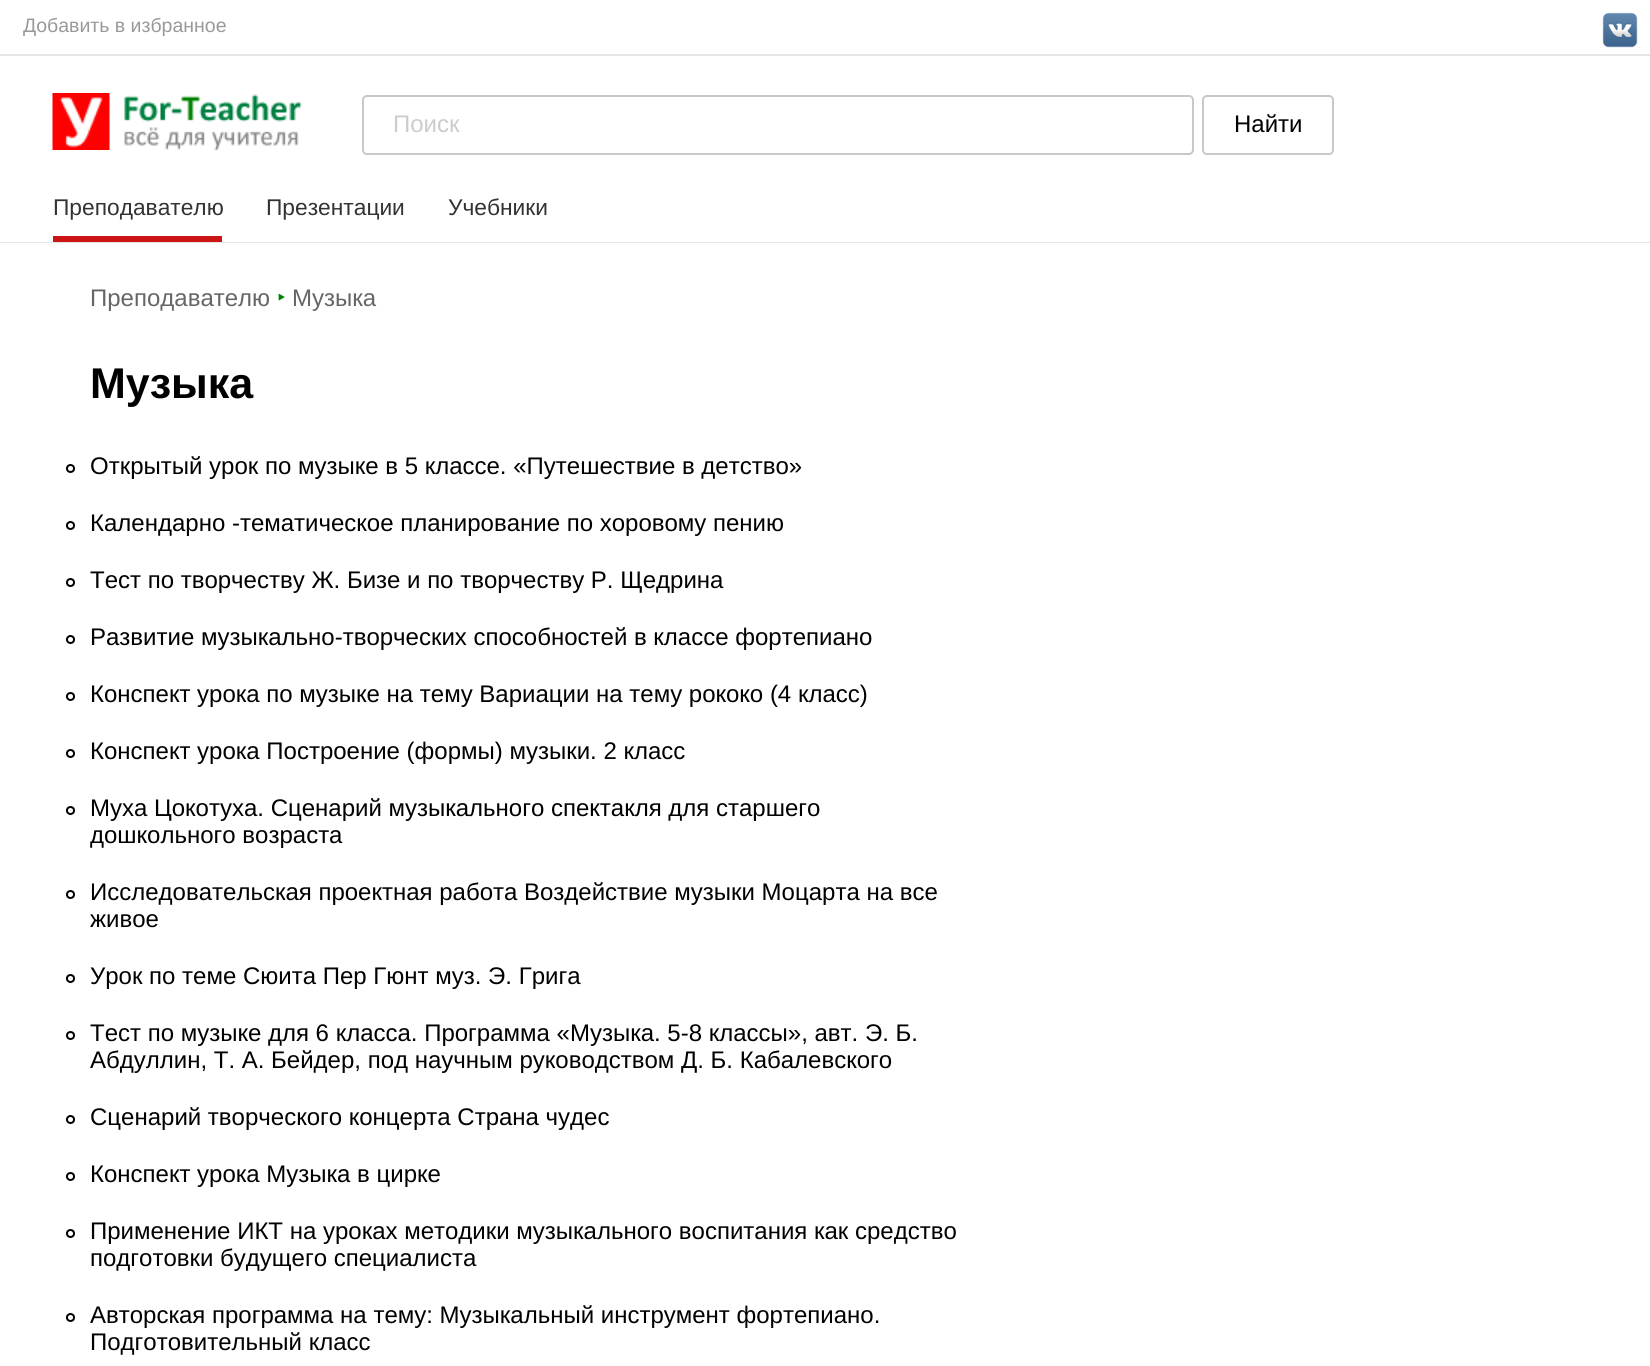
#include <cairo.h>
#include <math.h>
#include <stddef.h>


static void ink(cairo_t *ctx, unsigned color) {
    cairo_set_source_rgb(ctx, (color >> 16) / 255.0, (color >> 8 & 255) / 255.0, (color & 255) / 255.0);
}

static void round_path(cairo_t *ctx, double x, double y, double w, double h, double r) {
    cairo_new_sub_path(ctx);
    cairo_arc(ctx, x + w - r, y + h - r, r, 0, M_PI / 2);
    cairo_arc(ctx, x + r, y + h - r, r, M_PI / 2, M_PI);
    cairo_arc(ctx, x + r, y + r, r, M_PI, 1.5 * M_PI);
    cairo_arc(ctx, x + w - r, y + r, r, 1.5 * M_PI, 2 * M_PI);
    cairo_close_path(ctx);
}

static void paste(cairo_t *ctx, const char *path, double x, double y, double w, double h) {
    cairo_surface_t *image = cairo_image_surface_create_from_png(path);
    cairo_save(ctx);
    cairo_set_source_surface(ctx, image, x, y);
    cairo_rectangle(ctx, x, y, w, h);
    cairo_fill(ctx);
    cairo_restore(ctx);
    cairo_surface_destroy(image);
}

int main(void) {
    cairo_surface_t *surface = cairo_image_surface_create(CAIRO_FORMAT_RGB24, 1650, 1366);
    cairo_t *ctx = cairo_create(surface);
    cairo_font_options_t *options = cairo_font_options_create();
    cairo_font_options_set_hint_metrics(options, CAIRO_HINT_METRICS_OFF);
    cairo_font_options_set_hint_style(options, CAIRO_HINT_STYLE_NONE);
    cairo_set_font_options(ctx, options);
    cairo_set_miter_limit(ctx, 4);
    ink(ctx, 0xFFFFFF);
    cairo_paint(ctx);
    ink(ctx, 0xE6E6E6);
    cairo_rectangle(ctx, 0, 242, 1650, 1);
    cairo_fill(ctx);
    cairo_rectangle(ctx, 0, 54, 1650, 2);
    cairo_fill(ctx);
    cairo_select_font_face(ctx, "Liberation Sans", CAIRO_FONT_SLANT_NORMAL, CAIRO_FONT_WEIGHT_NORMAL);
    cairo_set_font_size(ctx, 19.5);
    ink(ctx, 0x999999);
    cairo_move_to(ctx, 23, 32);
    cairo_show_text(ctx, "Добавить в избранное");
    paste(ctx, "media/1.png", 1602, 12, 36, 36);
    paste(ctx, "media/2.png", 52, 93, 250, 57);
    round_path(ctx, 363, 96, 830, 58, 4);
    ink(ctx, 0xC8C8C8);
    cairo_stroke(ctx);
    cairo_set_font_size(ctx, 24);
    ink(ctx, 0xCCCCCC);
    cairo_move_to(ctx, 393, 132);
    cairo_show_text(ctx, "Поиск");
    round_path(ctx, 1203, 96, 130, 58, 4);
    ink(ctx, 0xC8C8C8);
    cairo_stroke(ctx);
    ink(ctx, 0x000000);
    cairo_move_to(ctx, 1234, 132);
    cairo_show_text(ctx, "Найти");
    cairo_set_font_size(ctx, 22.75);
    ink(ctx, 0x333333);
    cairo_move_to(ctx, 53, 215);
    cairo_show_text(ctx, "Преподавателю");
    ink(ctx, 0xCD1414);
    cairo_rectangle(ctx, 53, 236, 169, 6);
    cairo_fill(ctx);
    ink(ctx, 0x333333);
    cairo_move_to(ctx, 266, 215);
    cairo_show_text(ctx, "Презентации");
    cairo_move_to(ctx, 448, 215);
    cairo_show_text(ctx, "Учебники");
    cairo_set_font_size(ctx, 24);
    ink(ctx, 0x666666);
    cairo_move_to(ctx, 90, 306);
    cairo_show_text(ctx, "Преподавателю");
    cairo_select_font_face(ctx, "Noto Sans", CAIRO_FONT_SLANT_NORMAL, CAIRO_FONT_WEIGHT_NORMAL);
    ink(ctx, 0x008000);
    cairo_move_to(ctx, 277, 306);
    cairo_show_text(ctx, "‣");
    cairo_select_font_face(ctx, "Liberation Sans", CAIRO_FONT_SLANT_NORMAL, CAIRO_FONT_WEIGHT_NORMAL);
    ink(ctx, 0x666666);
    cairo_move_to(ctx, 292, 306);
    cairo_show_text(ctx, "Музыка");
    cairo_select_font_face(ctx, "Liberation Sans", CAIRO_FONT_SLANT_NORMAL, CAIRO_FONT_WEIGHT_BOLD);
    cairo_set_font_size(ctx, 43);
    ink(ctx, 0x000000);
    cairo_move_to(ctx, 90, 398);
    cairo_show_text(ctx, "Музыка");
    cairo_new_path(ctx);
    cairo_arc(ctx, 70.5, 468.5, 3.5, 0, 2 * M_PI);
    cairo_stroke(ctx);
    cairo_select_font_face(ctx, "Liberation Sans", CAIRO_FONT_SLANT_NORMAL, CAIRO_FONT_WEIGHT_NORMAL);
    cairo_set_font_size(ctx, 24);
    cairo_move_to(ctx, 90, 474);
    cairo_show_text(ctx, "Открытый урок по музыке в 5 классе. «Путешествие в детство»");
    cairo_new_path(ctx);
    cairo_arc(ctx, 70.5, 525.5, 3.5, 0, 2 * M_PI);
    cairo_stroke(ctx);
    cairo_move_to(ctx, 90, 531);
    cairo_show_text(ctx, "Календарно -тематическое планирование по хоровому пению");
    cairo_new_path(ctx);
    cairo_arc(ctx, 70.5, 582.5, 3.5, 0, 2 * M_PI);
    cairo_stroke(ctx);
    cairo_move_to(ctx, 90, 588);
    cairo_show_text(ctx, "Тест по творчеству Ж. Бизе и по творчеству Р. Щедрина");
    cairo_new_path(ctx);
    cairo_arc(ctx, 70.5, 639.5, 3.5, 0, 2 * M_PI);
    cairo_stroke(ctx);
    cairo_move_to(ctx, 90, 645);
    cairo_show_text(ctx, "Развитие музыкально-творческих способностей в классе фортепиано");
    cairo_new_path(ctx);
    cairo_arc(ctx, 70.5, 696.5, 3.5, 0, 2 * M_PI);
    cairo_stroke(ctx);
    cairo_move_to(ctx, 90, 702);
    cairo_show_text(ctx, "Конспект урока по музыке на тему Вариации на тему рококо (4 класс)");
    cairo_new_path(ctx);
    cairo_arc(ctx, 70.5, 753.5, 3.5, 0, 2 * M_PI);
    cairo_stroke(ctx);
    cairo_move_to(ctx, 90, 759);
    cairo_show_text(ctx, "Конспект урока Построение (формы) музыки. 2 класс");
    cairo_new_path(ctx);
    cairo_arc(ctx, 70.5, 810.5, 3.5, 0, 2 * M_PI);
    cairo_stroke(ctx);
    cairo_move_to(ctx, 90, 816);
    cairo_show_text(ctx, "Муха Цокотуха. Сценарий музыкального спектакля для стаpшего");
    cairo_move_to(ctx, 90, 843);
    cairo_show_text(ctx, "дошкольного возpаста");
    cairo_new_path(ctx);
    cairo_arc(ctx, 70.5, 894.5, 3.5, 0, 2 * M_PI);
    cairo_stroke(ctx);
    cairo_move_to(ctx, 90, 900);
    cairo_show_text(ctx, "Исследовательская проектная работа Воздействие музыки Моцарта на все");
    cairo_move_to(ctx, 90, 927);
    cairo_show_text(ctx, "живое");
    cairo_new_path(ctx);
    cairo_arc(ctx, 70.5, 978.5, 3.5, 0, 2 * M_PI);
    cairo_stroke(ctx);
    cairo_move_to(ctx, 90, 984);
    cairo_show_text(ctx, "Урок по теме Сюита Пер Гюнт муз. Э. Грига");
    cairo_new_path(ctx);
    cairo_arc(ctx, 70.5, 1035.5, 3.5, 0, 2 * M_PI);
    cairo_stroke(ctx);
    cairo_move_to(ctx, 90, 1041);
    cairo_show_text(ctx, "Тест по музыке для 6 класса. Программа «Музыка. 5-8 классы», авт. Э. Б.");
    cairo_move_to(ctx, 90, 1068);
    cairo_show_text(ctx, "Абдуллин, Т. А. Бейдер, под научным руководством Д. Б. Кабалевского");
    cairo_new_path(ctx);
    cairo_arc(ctx, 70.5, 1119.5, 3.5, 0, 2 * M_PI);
    cairo_stroke(ctx);
    cairo_move_to(ctx, 90, 1125);
    cairo_show_text(ctx, "Сценарий творческого концерта Страна чудес");
    cairo_new_path(ctx);
    cairo_arc(ctx, 70.5, 1176.5, 3.5, 0, 2 * M_PI);
    cairo_stroke(ctx);
    cairo_move_to(ctx, 90, 1182);
    cairo_show_text(ctx, "Конспект урока Музыка в цирке");
    cairo_new_path(ctx);
    cairo_arc(ctx, 70.5, 1233.5, 3.5, 0, 2 * M_PI);
    cairo_stroke(ctx);
    cairo_move_to(ctx, 90, 1239);
    cairo_show_text(ctx, "Применение ИКТ на уроках методики музыкального воспитания как средство");
    cairo_move_to(ctx, 90, 1266);
    cairo_show_text(ctx, "подготовки будущего специалиста");
    cairo_new_path(ctx);
    cairo_arc(ctx, 70.5, 1317.5, 3.5, 0, 2 * M_PI);
    cairo_stroke(ctx);
    cairo_move_to(ctx, 90, 1323);
    cairo_show_text(ctx, "Авторская программа на тему: Музыкальный инструмент фортепиано.");
    cairo_move_to(ctx, 90, 1350);
    cairo_show_text(ctx, "Подготовительный класс");
    cairo_surface_write_to_png(surface, "image.png");
    cairo_font_options_destroy(options);
    cairo_destroy(ctx);
    cairo_surface_destroy(surface);
    return 0;
}
